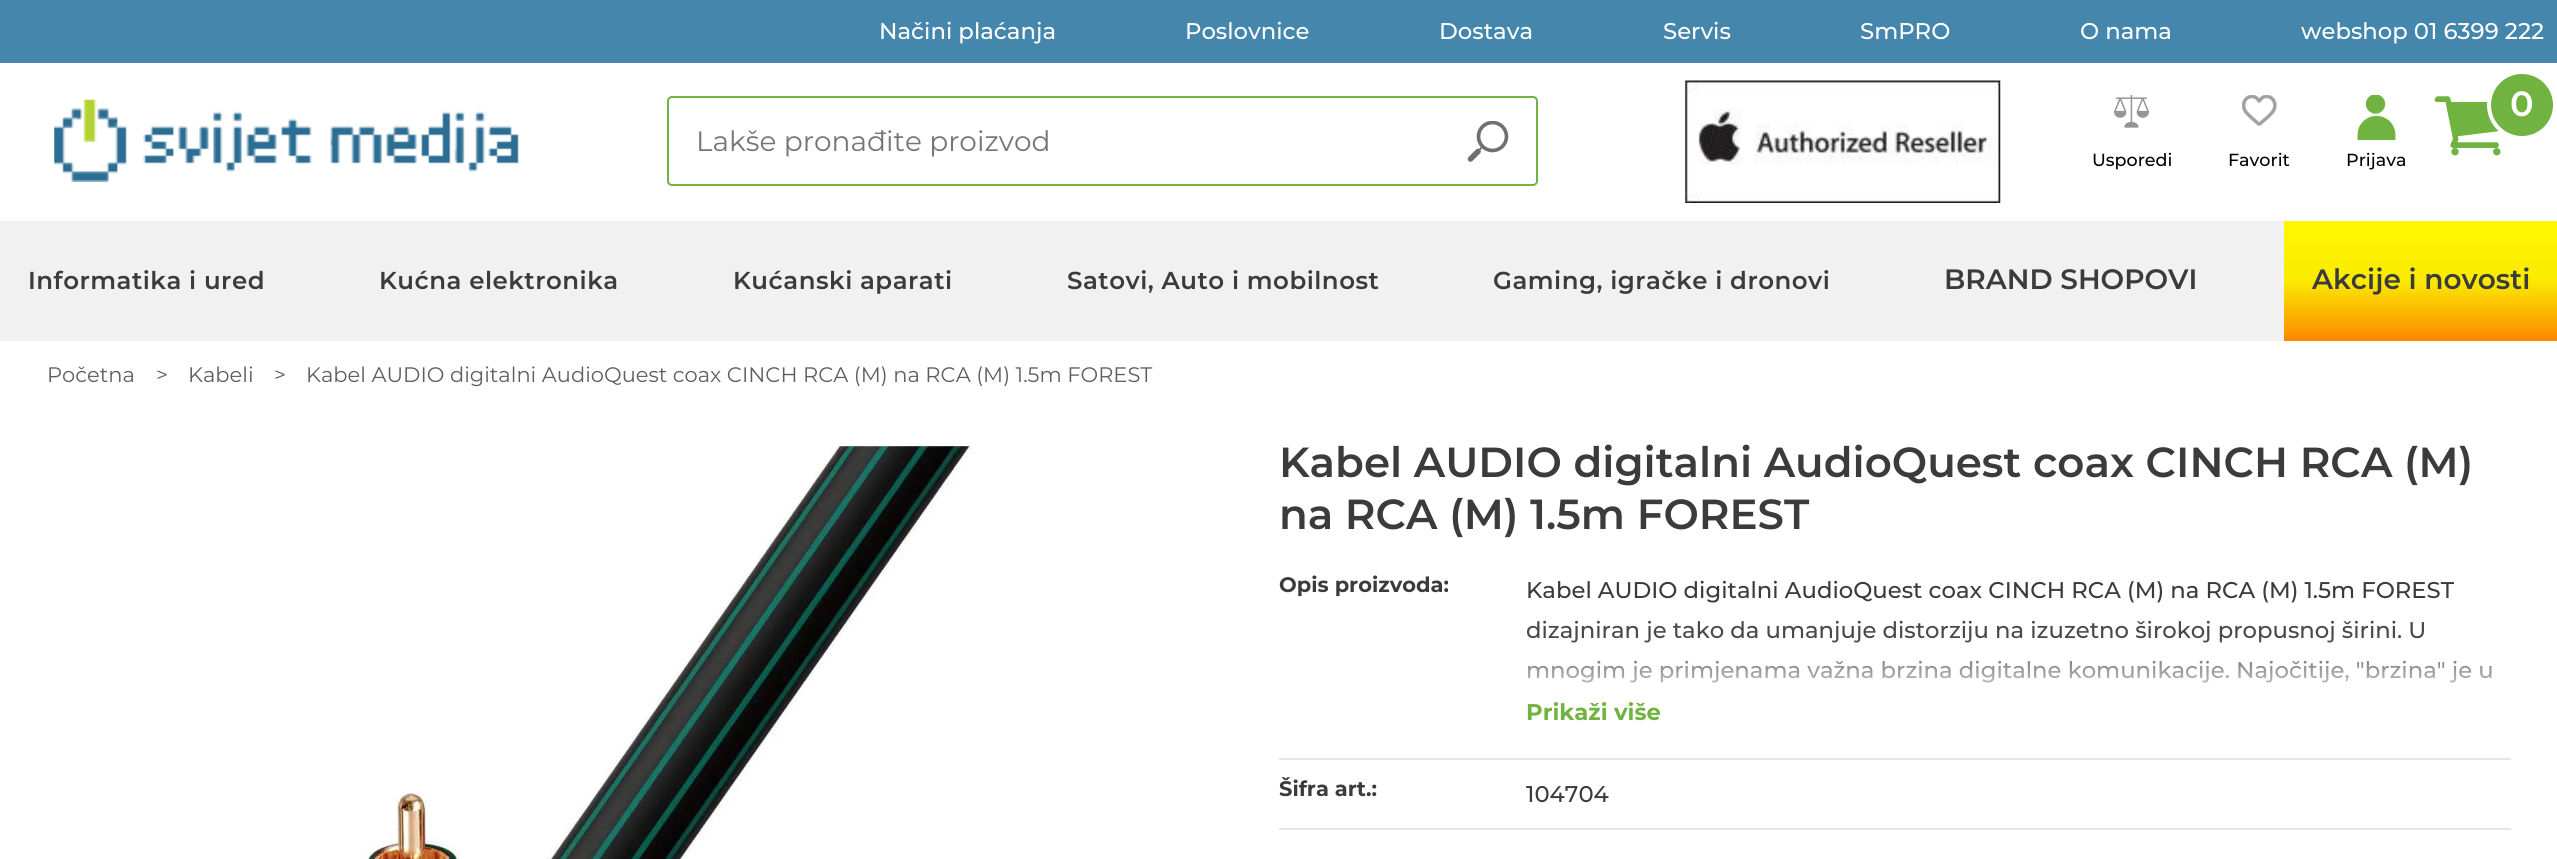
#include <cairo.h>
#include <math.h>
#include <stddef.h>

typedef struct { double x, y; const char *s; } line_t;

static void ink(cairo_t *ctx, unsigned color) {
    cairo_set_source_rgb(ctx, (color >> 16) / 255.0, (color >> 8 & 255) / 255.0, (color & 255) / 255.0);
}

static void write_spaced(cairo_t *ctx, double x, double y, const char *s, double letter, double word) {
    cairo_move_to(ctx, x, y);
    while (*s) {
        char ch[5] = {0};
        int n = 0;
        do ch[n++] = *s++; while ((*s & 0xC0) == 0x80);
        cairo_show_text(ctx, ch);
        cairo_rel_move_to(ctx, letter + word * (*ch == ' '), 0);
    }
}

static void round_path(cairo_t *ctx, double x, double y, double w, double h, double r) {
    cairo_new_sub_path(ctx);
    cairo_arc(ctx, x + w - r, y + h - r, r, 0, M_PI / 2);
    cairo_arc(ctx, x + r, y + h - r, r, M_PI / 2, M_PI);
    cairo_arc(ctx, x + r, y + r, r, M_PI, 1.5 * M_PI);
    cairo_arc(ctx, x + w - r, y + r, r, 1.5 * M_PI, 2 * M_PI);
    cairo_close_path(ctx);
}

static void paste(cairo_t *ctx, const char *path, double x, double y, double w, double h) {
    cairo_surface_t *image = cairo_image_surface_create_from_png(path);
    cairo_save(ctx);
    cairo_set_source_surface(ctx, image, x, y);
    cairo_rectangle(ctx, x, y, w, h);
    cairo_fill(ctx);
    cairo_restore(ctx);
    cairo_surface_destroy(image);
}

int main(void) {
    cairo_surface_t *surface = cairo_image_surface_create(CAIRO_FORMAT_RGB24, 2557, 859);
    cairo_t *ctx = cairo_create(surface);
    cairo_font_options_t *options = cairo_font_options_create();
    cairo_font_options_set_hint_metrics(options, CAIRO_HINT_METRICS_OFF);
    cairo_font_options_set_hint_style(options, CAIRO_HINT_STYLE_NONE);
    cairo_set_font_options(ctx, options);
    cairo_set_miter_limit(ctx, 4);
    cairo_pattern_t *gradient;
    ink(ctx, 0xFFFFFF);
    cairo_paint(ctx);
    ink(ctx, 0x4587AC);
    cairo_rectangle(ctx, 0, 0, 2557, 63);
    cairo_fill(ctx);
    cairo_select_font_face(ctx, "Montserrat Medium", CAIRO_FONT_SLANT_NORMAL, CAIRO_FONT_WEIGHT_NORMAL);
    cairo_set_font_size(ctx, 22.75);
    ink(ctx, 0xFFFFFF);
    {
        static const line_t items[] = {
            {879, 39, "Načini plaćanja"},
            {1185, 39, "Poslovnice"},
            {1439, 39, "Dostava"},
            {1663, 39, "Servis"},
            {1860, 39, "SmPRO"},
            {2080, 39, "O nama"},
            {2301, 39, "webshop 01 6399 222"},
        };
        for (size_t i = 0; i < sizeof items / sizeof *items; i++) {
            cairo_move_to(ctx, items[i].x, items[i].y);
            cairo_show_text(ctx, items[i].s);
        }
    }
    paste(ctx, "media/1.png", 54, 99, 465, 83);
    cairo_save(ctx);
    cairo_rectangle(ctx, 1467, 121, 42, 42);
    cairo_clip(ctx);
    cairo_arc(ctx, 1492.5, 136.5, 14, 0, 2 * M_PI);
    ink(ctx, 0x707070);
    cairo_set_line_width(ctx, 3.7);
    cairo_stroke(ctx);
    cairo_restore(ctx);
    cairo_new_path(ctx);
    cairo_move_to(ctx, 1481.5, 147.5);
    cairo_line_to(ctx, 1478, 151.5);
    ink(ctx, 0x707070);
    cairo_set_line_width(ctx, 1.9);
    cairo_stroke(ctx);
    cairo_new_path(ctx);
    cairo_move_to(ctx, 1478, 151.5);
    cairo_line_to(ctx, 1470.5, 159);
    cairo_set_line_width(ctx, 5.6);
    cairo_set_line_cap(ctx, CAIRO_LINE_CAP_ROUND);
    cairo_stroke(ctx);
    round_path(ctx, 668, 97, 869, 88, 4);
    ink(ctx, 0x70B340);
    cairo_set_line_width(ctx, 2);
    cairo_set_line_cap(ctx, CAIRO_LINE_CAP_BUTT);
    cairo_stroke(ctx);
    cairo_select_font_face(ctx, "Montserrat", CAIRO_FONT_SLANT_NORMAL, CAIRO_FONT_WEIGHT_NORMAL);
    cairo_set_font_size(ctx, 28);
    ink(ctx, 0x757575);
    cairo_move_to(ctx, 696, 151);
    cairo_show_text(ctx, "Lakše pronađite proizvod");
    paste(ctx, "media/2.png", 1685, 80, 316, 123);
    paste(ctx, "media/3.png", 2434, 96, 67, 60);
    ink(ctx, 0x70B340);
    cairo_arc(ctx, 2522, 105, 33, 0, 2 * M_PI);
    cairo_fill_preserve(ctx);
    ink(ctx, 0xFFFFFF);
    cairo_set_line_width(ctx, 4);
    cairo_stroke(ctx);
    cairo_select_font_face(ctx, "Montserrat SemiBold", CAIRO_FONT_SLANT_NORMAL, CAIRO_FONT_WEIGHT_NORMAL);
    cairo_set_font_size(ctx, 35);
    cairo_move_to(ctx, 2510, 116);
    cairo_show_text(ctx, "0");
    paste(ctx, "media/4.png", 2114, 95, 35, 33);
    cairo_select_font_face(ctx, "Montserrat Medium", CAIRO_FONT_SLANT_NORMAL, CAIRO_FONT_WEIGHT_NORMAL);
    cairo_set_font_size(ctx, 17.5);
    ink(ctx, 0x000000);
    cairo_move_to(ctx, 2092, 166);
    cairo_show_text(ctx, "Usporedi");
    paste(ctx, "media/5.png", 2242, 95, 35, 31);
    cairo_move_to(ctx, 2228, 166);
    cairo_show_text(ctx, "Favorit");
    paste(ctx, "media/6.png", 2357, 95, 39, 45);
    cairo_move_to(ctx, 2346, 166);
    cairo_show_text(ctx, "Prijava");
    ink(ctx, 0xF1F1F1);
    cairo_rectangle(ctx, 0, 221, 2284, 120);
    cairo_fill(ctx);
    cairo_select_font_face(ctx, "Montserrat SemiBold", CAIRO_FONT_SLANT_NORMAL, CAIRO_FONT_WEIGHT_NORMAL);
    cairo_set_font_size(ctx, 24.5);
    ink(ctx, 0x3B3B3B);
    {
        static const line_t items[] = {
            {28, 289, "Informatika i ured"},
            {379, 289, "Kućna elektronika"},
            {733, 289, "Kućanski aparati"},
            {1067, 289, "Satovi, Auto i mobilnost"},
            {1493, 289, "Gaming, igračke i dronovi"},
        };
        for (size_t i = 0; i < sizeof items / sizeof *items; i++) {
            write_spaced(ctx, items[i].x, items[i].y, items[i].s, 0.5, 0);
        }
    }
    cairo_set_font_size(ctx, 28);
    cairo_move_to(ctx, 1944, 289);
    cairo_show_text(ctx, "BRAND SHOPOVI");
    gradient = cairo_pattern_create_linear(2421, 221, 2421, 341);
    cairo_pattern_add_color_stop_rgba(gradient, 0, 1, 0.969, 0, 1);
    cairo_pattern_add_color_stop_rgba(gradient, 0.5, 0.984, 0.918, 0, 1);
    cairo_pattern_add_color_stop_rgba(gradient, 1, 0.992, 0.529, 0, 1);
    cairo_set_source(ctx, gradient);
    cairo_pattern_destroy(gradient);
    cairo_rectangle(ctx, 2284, 221, 273, 120);
    cairo_fill(ctx);
    ink(ctx, 0x3B3B3B);
    cairo_move_to(ctx, 2312, 289);
    cairo_show_text(ctx, "Akcije i novosti");
    cairo_select_font_face(ctx, "Montserrat", CAIRO_FONT_SLANT_NORMAL, CAIRO_FONT_WEIGHT_NORMAL);
    cairo_set_font_size(ctx, 21);
    ink(ctx, 0x5E5E5E);
    {
        static const line_t items[] = {
            {47, 382, "Početna"},
            {156, 382, ">"},
            {188, 382, "Kabeli"},
            {274, 382, ">"},
            {306, 382, "Kabel AUDIO digitalni AudioQuest coax CINCH RCA (M) na RCA (M) 1.5m FOREST"},
        };
        for (size_t i = 0; i < sizeof items / sizeof *items; i++) {
            cairo_move_to(ctx, items[i].x, items[i].y);
            cairo_show_text(ctx, items[i].s);
        }
    }
    paste(ctx, "media/7.png", 367, 443, 606, 416);
    cairo_select_font_face(ctx, "Montserrat SemiBold", CAIRO_FONT_SLANT_NORMAL, CAIRO_FONT_WEIGHT_NORMAL);
    cairo_set_font_size(ctx, 42);
    ink(ctx, 0x3B3B3B);
    cairo_move_to(ctx, 1279, 477);
    cairo_show_text(ctx, "Kabel AUDIO digitalni AudioQuest coax CINCH RCA (M)");
    cairo_move_to(ctx, 1279, 529);
    cairo_show_text(ctx, "na RCA (M) 1.5m FOREST");
    ink(ctx, 0xE6E6E6);
    cairo_rectangle(ctx, 1279, 758, 1232, 2);
    cairo_fill(ctx);
    cairo_select_font_face(ctx, "Montserrat", CAIRO_FONT_SLANT_NORMAL, CAIRO_FONT_WEIGHT_BOLD);
    cairo_set_font_size(ctx, 21);
    ink(ctx, 0x3B3B3B);
    cairo_move_to(ctx, 1279, 592);
    cairo_show_text(ctx, "Opis proizvoda:");
    cairo_select_font_face(ctx, "Montserrat Medium", CAIRO_FONT_SLANT_NORMAL, CAIRO_FONT_WEIGHT_NORMAL);
    cairo_set_font_size(ctx, 22.75);
    {
        static const line_t items[] = {
            {1526, 598, "Kabel AUDIO digitalni AudioQuest coax CINCH RCA (M) na RCA (M) 1.5m FOREST"},
            {1526, 638, "dizajniran je tako da umanjuje distorziju na izuzetno širokoj propusnoj širini. U"},
            {1526, 678, "mnogim je primjenama važna brzina digitalne komunikacije. Najočitije, \"brzina\" je u"},
        };
        for (size_t i = 0; i < sizeof items / sizeof *items; i++) {
            cairo_move_to(ctx, items[i].x, items[i].y);
            cairo_show_text(ctx, items[i].s);
        }
    }
    gradient = cairo_pattern_create_linear(2019, 605, 2019, 711);
    cairo_pattern_add_color_stop_rgba(gradient, 0.3, 1, 1, 1, 0.07);
    cairo_pattern_add_color_stop_rgba(gradient, 1, 1, 1, 1, 1);
    cairo_set_source(ctx, gradient);
    cairo_pattern_destroy(gradient);
    cairo_rectangle(ctx, 1526, 621, 966, 62);
    cairo_fill(ctx);
    cairo_select_font_face(ctx, "Montserrat", CAIRO_FONT_SLANT_NORMAL, CAIRO_FONT_WEIGHT_BOLD);
    ink(ctx, 0x70B340);
    cairo_move_to(ctx, 1526, 720);
    cairo_show_text(ctx, "Prikaži više");
    ink(ctx, 0xE6E6E6);
    cairo_rectangle(ctx, 1279, 828, 1232, 2);
    cairo_fill(ctx);
    cairo_set_font_size(ctx, 21);
    ink(ctx, 0x3B3B3B);
    cairo_move_to(ctx, 1279, 796);
    cairo_show_text(ctx, "Šifra art.:");
    cairo_select_font_face(ctx, "Montserrat Medium", CAIRO_FONT_SLANT_NORMAL, CAIRO_FONT_WEIGHT_NORMAL);
    cairo_set_font_size(ctx, 22.75);
    cairo_move_to(ctx, 1526, 802);
    cairo_show_text(ctx, "104704");
    cairo_surface_write_to_png(surface, "image.png");
    cairo_font_options_destroy(options);
    cairo_destroy(ctx);
    cairo_surface_destroy(surface);
    return 0;
}
